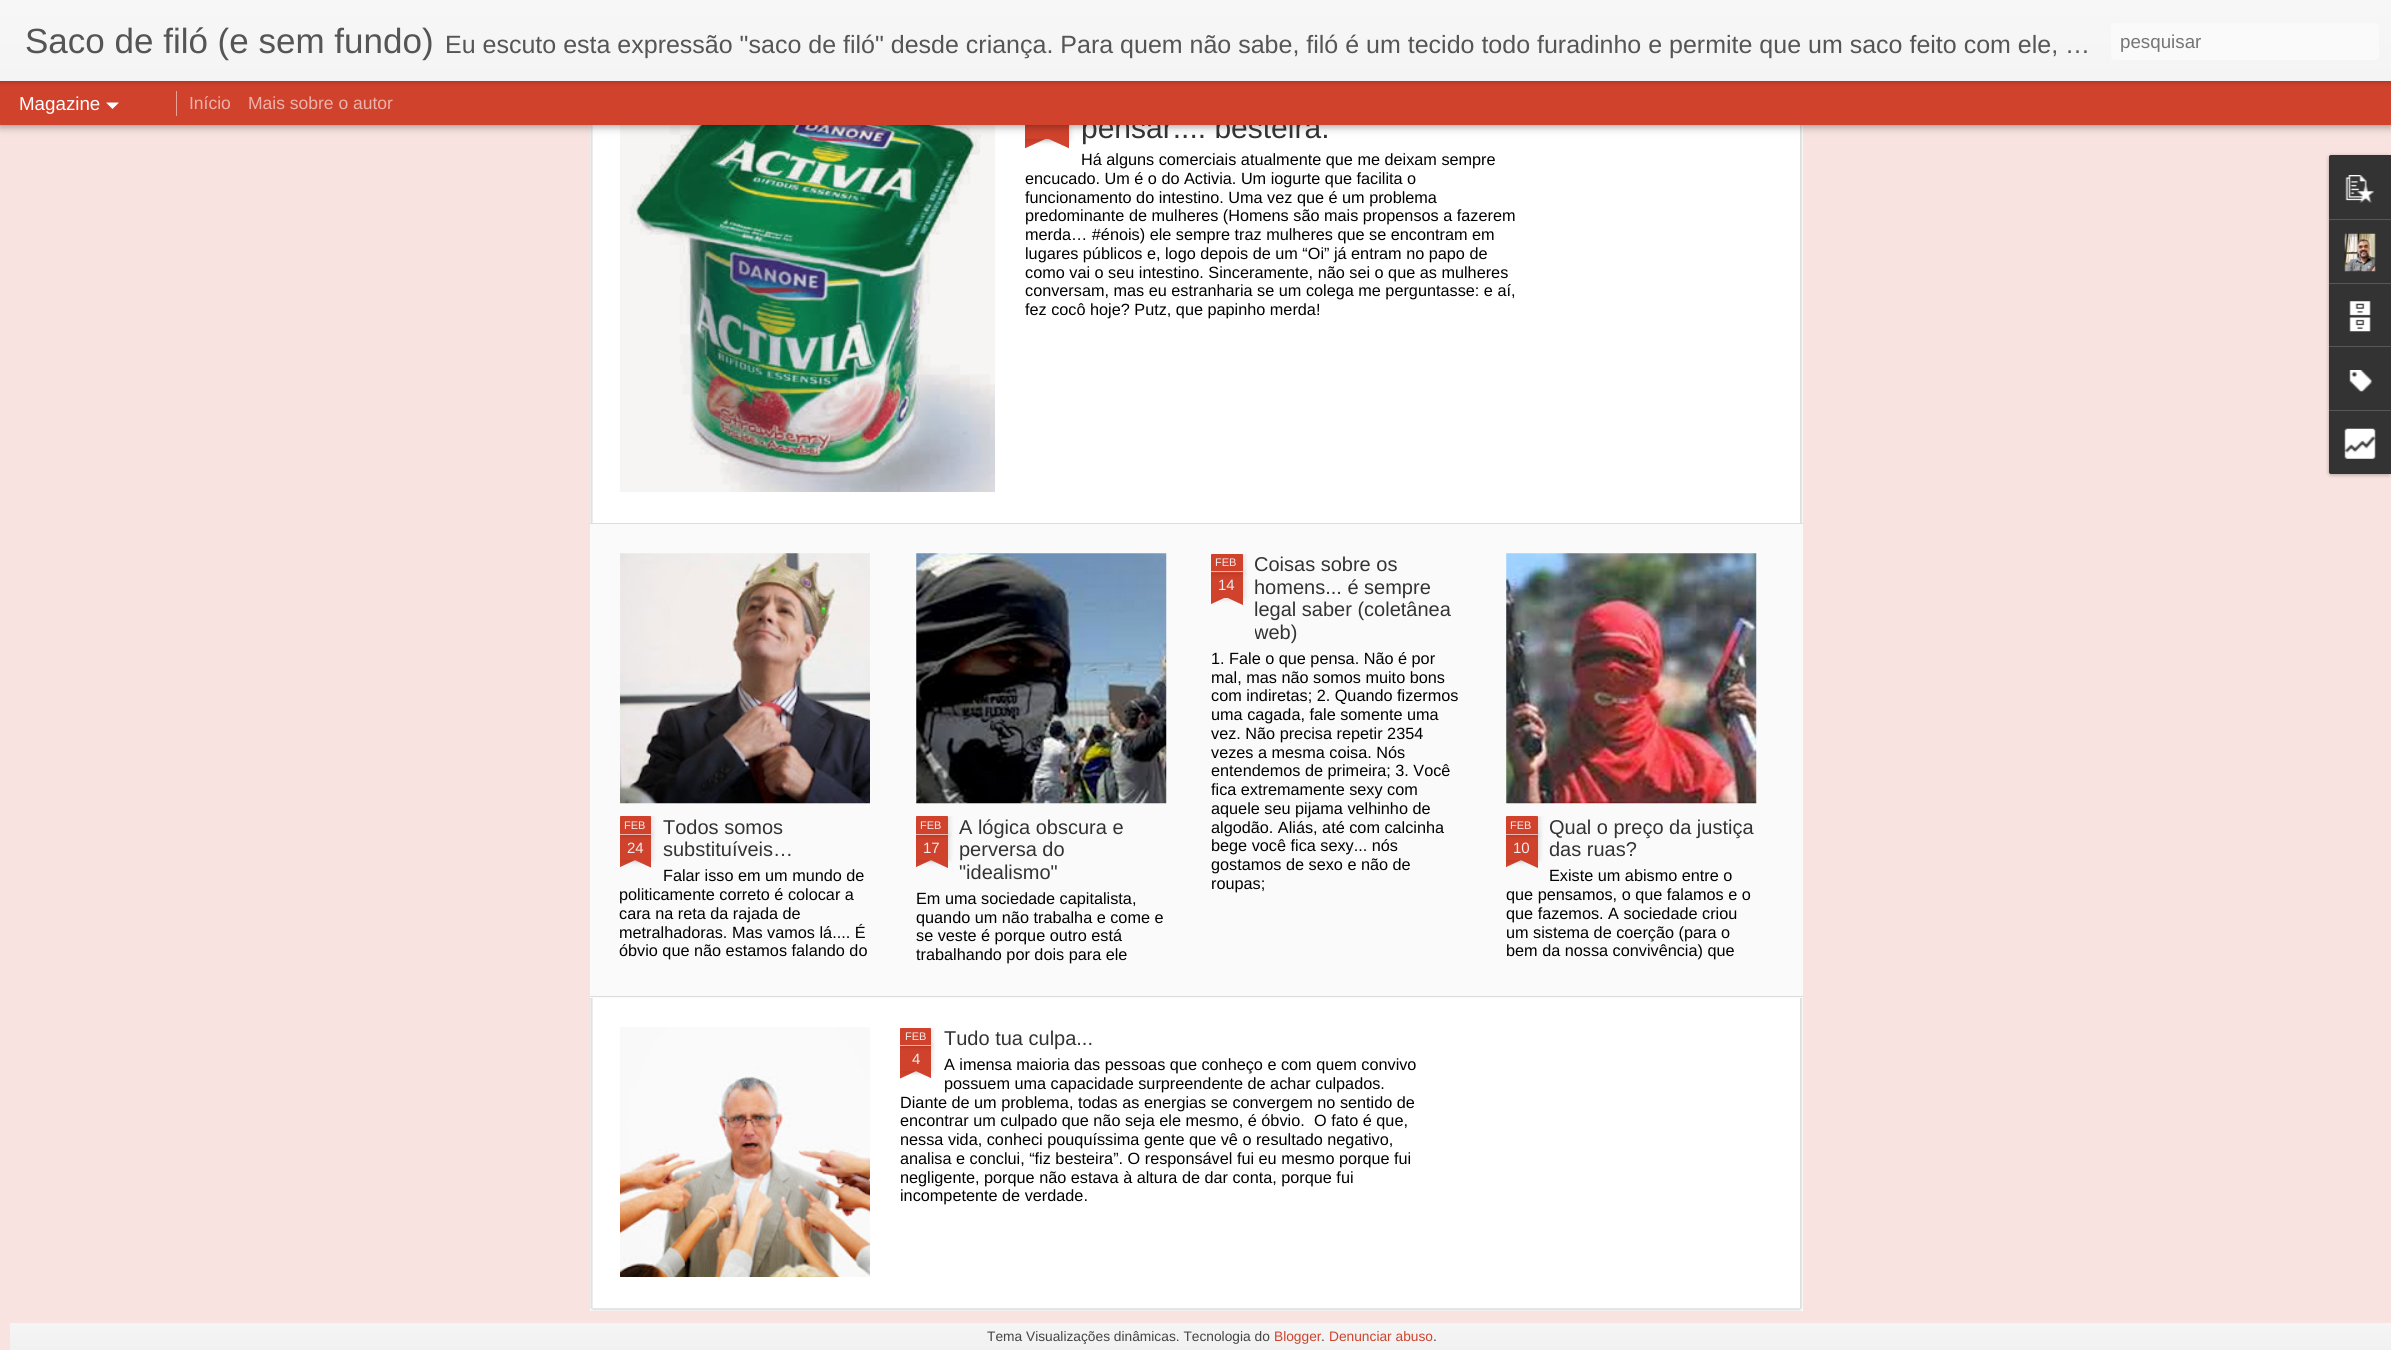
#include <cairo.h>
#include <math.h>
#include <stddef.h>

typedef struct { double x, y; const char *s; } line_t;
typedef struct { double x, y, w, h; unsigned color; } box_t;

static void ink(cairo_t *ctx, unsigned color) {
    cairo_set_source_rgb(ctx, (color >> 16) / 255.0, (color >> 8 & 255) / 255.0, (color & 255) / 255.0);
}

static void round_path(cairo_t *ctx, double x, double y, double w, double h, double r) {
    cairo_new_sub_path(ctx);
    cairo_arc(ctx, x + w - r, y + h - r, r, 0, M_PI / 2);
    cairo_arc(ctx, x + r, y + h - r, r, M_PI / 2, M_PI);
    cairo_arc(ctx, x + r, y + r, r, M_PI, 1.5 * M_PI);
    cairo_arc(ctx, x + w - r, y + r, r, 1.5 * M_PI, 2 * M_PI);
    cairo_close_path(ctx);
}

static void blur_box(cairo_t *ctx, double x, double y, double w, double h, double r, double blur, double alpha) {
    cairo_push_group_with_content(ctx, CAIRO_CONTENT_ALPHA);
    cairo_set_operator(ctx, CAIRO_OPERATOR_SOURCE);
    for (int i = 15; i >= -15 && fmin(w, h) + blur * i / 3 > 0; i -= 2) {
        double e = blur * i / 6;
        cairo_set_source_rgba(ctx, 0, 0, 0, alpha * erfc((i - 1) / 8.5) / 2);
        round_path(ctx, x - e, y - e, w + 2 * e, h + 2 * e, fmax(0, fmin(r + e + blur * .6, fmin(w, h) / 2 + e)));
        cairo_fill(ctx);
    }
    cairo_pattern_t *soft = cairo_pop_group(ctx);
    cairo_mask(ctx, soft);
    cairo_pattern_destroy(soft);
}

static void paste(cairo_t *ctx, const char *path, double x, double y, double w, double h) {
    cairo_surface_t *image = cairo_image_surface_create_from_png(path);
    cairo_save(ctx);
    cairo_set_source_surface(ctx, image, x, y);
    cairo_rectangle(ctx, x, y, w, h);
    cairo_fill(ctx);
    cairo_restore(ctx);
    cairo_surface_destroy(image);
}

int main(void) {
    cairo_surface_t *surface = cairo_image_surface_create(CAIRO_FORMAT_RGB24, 2391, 1350);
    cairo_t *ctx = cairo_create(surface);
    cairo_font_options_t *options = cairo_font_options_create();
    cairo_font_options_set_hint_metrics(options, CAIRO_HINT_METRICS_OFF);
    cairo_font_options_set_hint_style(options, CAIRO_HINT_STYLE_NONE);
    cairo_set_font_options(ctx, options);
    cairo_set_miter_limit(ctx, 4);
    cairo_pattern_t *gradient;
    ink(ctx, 0xF8E3E0);
    cairo_paint(ctx);
    ink(ctx, 0xFFFFFF);
    cairo_rectangle(ctx, 590, 125, 1213, 1186);
    cairo_fill(ctx);
    paste(ctx, "media/1.png", 590, 125, 1213, 1186);
    paste(ctx, "media/2.png", 620, 125, 375, 367);
    cairo_save(ctx);
    cairo_rectangle(ctx, 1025, 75, 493, 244);
    cairo_clip(ctx);
    ink(ctx, 0x000000);
    blur_box(ctx, 1025, 101, 44, 38, 0, 3, 0.2);
    cairo_restore(ctx);
    ink(ctx, 0xD0422C);
    cairo_rectangle(ctx, 1025, 125, 44, 14);
    cairo_fill(ctx);
    cairo_save(ctx);
    cairo_rectangle(ctx, 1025, 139, 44, 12);
    cairo_clip(ctx);
    ink(ctx, 0x000000);
    blur_box(ctx, 1014, 126, 62, 13, 0, 3, 0.2);
    cairo_restore(ctx);
    cairo_save(ctx);
    cairo_rectangle(ctx, 1025, 139, 44, 12);
    cairo_clip(ctx);
    cairo_new_path(ctx);
    cairo_move_to(ctx, 1014, 140);
    cairo_line_to(ctx, 1071, 114);
    cairo_line_to(ctx, 1076, 125);
    cairo_line_to(ctx, 1019, 151);
    cairo_close_path(ctx);
    cairo_fill(ctx);
    cairo_restore(ctx);
    cairo_save(ctx);
    cairo_rectangle(ctx, 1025, 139, 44, 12);
    cairo_clip(ctx);
    ink(ctx, 0x000000);
    blur_box(ctx, 1018, 126, 62, 13, 0, 3, 0.2);
    cairo_restore(ctx);
    cairo_save(ctx);
    cairo_rectangle(ctx, 1025, 139, 44, 12);
    cairo_clip(ctx);
    cairo_new_path(ctx);
    cairo_move_to(ctx, 1023, 114);
    cairo_line_to(ctx, 1080, 140);
    cairo_line_to(ctx, 1075, 151);
    cairo_line_to(ctx, 1018, 125);
    cairo_close_path(ctx);
    cairo_fill(ctx);
    cairo_restore(ctx);
    ink(ctx, 0x000000);
    blur_box(ctx, 0, 81, 2391, 44, 0, 5, 0.5);
    cairo_select_font_face(ctx, "Liberation Sans", CAIRO_FONT_SLANT_NORMAL, CAIRO_FONT_WEIGHT_NORMAL);
    cairo_set_font_size(ctx, 30);
    ink(ctx, 0x333333);
    cairo_move_to(ctx, 1081, 138);
    cairo_show_text(ctx, "pensar.... besteira.");
    ink(ctx, 0xD0422C);
    cairo_rectangle(ctx, 0, 81, 2391, 44);
    cairo_fill(ctx);
    ink(ctx, 0x000000);
    blur_box(ctx, 0, 0, 2391, 81, 0, 3, 0.3);
    gradient = cairo_pattern_create_linear(0, 0, 0, 81);
    cairo_pattern_add_color_stop_rgba(gradient, 0, 0.969, 0.969, 0.969, 1);
    cairo_pattern_add_color_stop_rgba(gradient, 1, 0.957, 0.957, 0.957, 1);
    cairo_set_source(ctx, gradient);
    cairo_pattern_destroy(gradient);
    cairo_rectangle(ctx, 0, 0, 2391, 81);
    cairo_fill(ctx);
    cairo_set_font_size(ctx, 35);
    ink(ctx, 0x555555);
    cairo_move_to(ctx, 25, 53);
    cairo_show_text(ctx, "Saco de filó (e sem fundo)");
    cairo_set_font_size(ctx, 25);
    cairo_move_to(ctx, 445, 53);
    cairo_show_text(ctx, "Eu escuto esta expressão \"saco de filó\" desde criança. Para quem não sabe, filó é um tecido todo furadinho e permite que um saco feito com ele, …");
    ink(ctx, 0xFAFAFA);
    round_path(ctx, 2111, 23, 268, 37, 4);
    cairo_fill(ctx);
    cairo_set_font_size(ctx, 18.75);
    ink(ctx, 0x757575);
    cairo_move_to(ctx, 2120, 48);
    cairo_show_text(ctx, "pesquisar");
    ink(ctx, 0xFFFFFF);
    cairo_move_to(ctx, 19, 110);
    cairo_show_text(ctx, "Magazine");
    cairo_new_path(ctx);
    cairo_move_to(ctx, 106, 102.5);
    cairo_line_to(ctx, 119, 102.5);
    cairo_line_to(ctx, 112.5, 109);
    cairo_close_path(ctx);
    cairo_fill(ctx);
    ink(ctx, 0xE8A196);
    cairo_rectangle(ctx, 176, 91, 1, 25);
    cairo_fill(ctx);
    cairo_set_font_size(ctx, 17.5);
    ink(ctx, 0xECB3AB);
    cairo_move_to(ctx, 189, 109);
    cairo_show_text(ctx, "Início");
    cairo_move_to(ctx, 248, 109);
    cairo_show_text(ctx, "Mais sobre o autor");
    cairo_set_font_size(ctx, 16.25);
    ink(ctx, 0x000000);
    {
        static const line_t items[] = {
            {1081, 165, "Há alguns comerciais atualmente que me deixam sempre"},
            {1025, 184, "encucado. Um é o do Activia. Um iogurte que facilita o"},
            {1025, 203, "funcionamento do intestino. Uma vez que é um problema"},
            {1025, 221, "predominante de mulheres (Homens são mais propensos a fazerem"},
            {1025, 240, "merda… #énois) ele sempre traz mulheres que se encontram em"},
            {1025, 259, "lugares públicos e, logo depois de um “Oi” já entram no papo de"},
            {1025, 278, "como vai o seu intestino. Sinceramente, não sei o que as mulheres"},
            {1025, 296, "conversam, mas eu estranharia se um colega me perguntasse: e aí,"},
            {1025, 315, "fez cocô hoje? Putz, que papinho merda!"},
        };
        for (size_t i = 0; i < sizeof items / sizeof *items; i++) {
            cairo_move_to(ctx, items[i].x, items[i].y);
            cairo_show_text(ctx, items[i].s);
        }
    }
    {
        static const box_t items[] = {
            {590, 524, 1213, 474, 0xFAFAFA},
            {590, 523, 1213, 1, 0xDDDDDD},
            {590, 996, 1213, 1, 0xDDDDDD},
        };
        for (size_t i = 0; i < sizeof items / sizeof *items; i++) {
            ink(ctx, items[i].color);
            cairo_rectangle(ctx, items[i].x, items[i].y, items[i].w, items[i].h);
            cairo_fill(ctx);
        }
    }
    paste(ctx, "media/3.png", 620, 553, 250, 251);
    cairo_save(ctx);
    cairo_rectangle(ctx, 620, 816, 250, 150);
    cairo_clip(ctx);
    ink(ctx, 0x000000);
    blur_box(ctx, 620, 835, 31, 25, 0, 3, 0.2);
    cairo_restore(ctx);
    ink(ctx, 0xD0422C);
    cairo_rectangle(ctx, 620, 835, 31, 25);
    cairo_fill(ctx);
    cairo_save(ctx);
    cairo_rectangle(ctx, 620, 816, 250, 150);
    cairo_clip(ctx);
    ink(ctx, 0x000000);
    blur_box(ctx, 620, 816, 31, 19, 1, 3, 0.2);
    cairo_restore(ctx);
    cairo_new_path(ctx);
    cairo_move_to(ctx, 621, 816);
    cairo_line_to(ctx, 650, 816);
    cairo_curve_to(ctx, 650.5, 816, 651, 816.5, 651, 817);
    cairo_line_to(ctx, 651, 835);
    cairo_line_to(ctx, 620, 835);
    cairo_line_to(ctx, 620, 817);
    cairo_curve_to(ctx, 620, 816.5, 620.5, 816, 621, 816);
    cairo_close_path(ctx);
    cairo_fill(ctx);
    ink(ctx, 0xECB3AB);
    cairo_rectangle(ctx, 620, 834, 31, 1);
    cairo_fill(ctx);
    cairo_set_font_size(ctx, 11);
    ink(ctx, 0xEEEEEE);
    cairo_move_to(ctx, 624, 829);
    cairo_show_text(ctx, "FEB");
    cairo_save(ctx);
    cairo_rectangle(ctx, 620, 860, 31, 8);
    cairo_clip(ctx);
    ink(ctx, 0x000000);
    blur_box(ctx, 613, 851, 50, 8, 0, 3, 0.2);
    cairo_restore(ctx);
    cairo_save(ctx);
    cairo_rectangle(ctx, 620, 860, 31, 8);
    cairo_clip(ctx);
    ink(ctx, 0xD0422C);
    cairo_new_path(ctx);
    cairo_move_to(ctx, 613, 862);
    cairo_line_to(ctx, 658, 841);
    cairo_line_to(ctx, 661, 848);
    cairo_line_to(ctx, 616, 869);
    cairo_close_path(ctx);
    cairo_fill(ctx);
    cairo_restore(ctx);
    cairo_save(ctx);
    cairo_rectangle(ctx, 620, 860, 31, 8);
    cairo_clip(ctx);
    ink(ctx, 0x000000);
    blur_box(ctx, 609, 851, 50, 8, 0, 3, 0.2);
    cairo_restore(ctx);
    cairo_save(ctx);
    cairo_rectangle(ctx, 620, 860, 31, 8);
    cairo_clip(ctx);
    ink(ctx, 0xD0422C);
    cairo_new_path(ctx);
    cairo_move_to(ctx, 612, 841);
    cairo_line_to(ctx, 657, 862);
    cairo_line_to(ctx, 654, 869);
    cairo_line_to(ctx, 609, 848);
    cairo_close_path(ctx);
    cairo_fill(ctx);
    cairo_restore(ctx);
    cairo_set_font_size(ctx, 15);
    cairo_move_to(ctx, 627, 853);
    cairo_show_text(ctx, "24");
    cairo_set_font_size(ctx, 20);
    ink(ctx, 0x333333);
    cairo_move_to(ctx, 663, 834);
    cairo_show_text(ctx, "Todos somos");
    cairo_move_to(ctx, 663, 856);
    cairo_show_text(ctx, "substituíveis…");
    cairo_set_font_size(ctx, 16.25);
    ink(ctx, 0x000000);
    {
        static const line_t items[] = {
            {663, 881, "Falar isso em um mundo de"},
            {619, 900, "politicamente correto é colocar a"},
            {619, 919, "cara na reta da rajada de"},
            {619, 938, "metralhadoras. Mas vamos lá.... É"},
            {619, 956, "óbvio que não estamos falando do"},
        };
        for (size_t i = 0; i < sizeof items / sizeof *items; i++) {
            cairo_move_to(ctx, items[i].x, items[i].y);
            cairo_show_text(ctx, items[i].s);
        }
    }
    paste(ctx, "media/4.png", 916, 553, 251, 251);
    cairo_save(ctx);
    cairo_rectangle(ctx, 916, 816, 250, 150);
    cairo_clip(ctx);
    ink(ctx, 0x000000);
    blur_box(ctx, 916, 835, 32, 25, 0, 3, 0.2);
    cairo_restore(ctx);
    ink(ctx, 0xD0422C);
    cairo_rectangle(ctx, 916, 835, 32, 25);
    cairo_fill(ctx);
    cairo_save(ctx);
    cairo_rectangle(ctx, 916, 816, 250, 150);
    cairo_clip(ctx);
    ink(ctx, 0x000000);
    blur_box(ctx, 916, 816, 32, 19, 1, 3, 0.2);
    cairo_restore(ctx);
    cairo_new_path(ctx);
    cairo_move_to(ctx, 917, 816);
    cairo_line_to(ctx, 947, 816);
    cairo_curve_to(ctx, 947.5, 816, 948, 816.5, 948, 817);
    cairo_line_to(ctx, 948, 835);
    cairo_line_to(ctx, 916, 835);
    cairo_line_to(ctx, 916, 817);
    cairo_curve_to(ctx, 916, 816.5, 916.5, 816, 917, 816);
    cairo_close_path(ctx);
    cairo_fill(ctx);
    ink(ctx, 0xECB3AB);
    cairo_rectangle(ctx, 916, 834, 32, 1);
    cairo_fill(ctx);
    cairo_set_font_size(ctx, 11);
    ink(ctx, 0xEEEEEE);
    cairo_move_to(ctx, 920, 829);
    cairo_show_text(ctx, "FEB");
    cairo_save(ctx);
    cairo_rectangle(ctx, 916, 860, 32, 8);
    cairo_clip(ctx);
    ink(ctx, 0x000000);
    blur_box(ctx, 909, 851, 50, 8, 0, 3, 0.2);
    cairo_restore(ctx);
    cairo_save(ctx);
    cairo_rectangle(ctx, 916, 860, 32, 8);
    cairo_clip(ctx);
    ink(ctx, 0xD0422C);
    cairo_new_path(ctx);
    cairo_move_to(ctx, 909, 862);
    cairo_line_to(ctx, 954, 841);
    cairo_line_to(ctx, 957, 848);
    cairo_line_to(ctx, 912, 869);
    cairo_close_path(ctx);
    cairo_fill(ctx);
    cairo_restore(ctx);
    cairo_save(ctx);
    cairo_rectangle(ctx, 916, 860, 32, 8);
    cairo_clip(ctx);
    ink(ctx, 0x000000);
    blur_box(ctx, 905, 851, 50, 8, 0, 3, 0.2);
    cairo_restore(ctx);
    cairo_save(ctx);
    cairo_rectangle(ctx, 916, 860, 32, 8);
    cairo_clip(ctx);
    ink(ctx, 0xD0422C);
    cairo_new_path(ctx);
    cairo_move_to(ctx, 908, 841);
    cairo_line_to(ctx, 954, 862);
    cairo_line_to(ctx, 950, 869);
    cairo_line_to(ctx, 905, 848);
    cairo_close_path(ctx);
    cairo_fill(ctx);
    cairo_restore(ctx);
    cairo_set_font_size(ctx, 15);
    cairo_move_to(ctx, 923, 853);
    cairo_show_text(ctx, "17");
    cairo_set_font_size(ctx, 20);
    ink(ctx, 0x333333);
    {
        static const line_t items[] = {
            {959, 834, "A lógica obscura e"},
            {959, 856, "perversa do"},
            {959, 879, "\"idealismo\""},
        };
        for (size_t i = 0; i < sizeof items / sizeof *items; i++) {
            cairo_move_to(ctx, items[i].x, items[i].y);
            cairo_show_text(ctx, items[i].s);
        }
    }
    cairo_set_font_size(ctx, 16.25);
    ink(ctx, 0x000000);
    {
        static const line_t items[] = {
            {916, 904, "Em uma sociedade capitalista,"},
            {916, 923, "quando um não trabalha e come e"},
            {916, 941, "se veste é porque outro está"},
            {916, 960, "trabalhando por dois para ele"},
        };
        for (size_t i = 0; i < sizeof items / sizeof *items; i++) {
            cairo_move_to(ctx, items[i].x, items[i].y);
            cairo_show_text(ctx, items[i].s);
        }
    }
    cairo_save(ctx);
    cairo_rectangle(ctx, 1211, 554, 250, 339);
    cairo_clip(ctx);
    ink(ctx, 0x000000);
    blur_box(ctx, 1211, 573, 32, 25, 0, 3, 0.2);
    cairo_restore(ctx);
    ink(ctx, 0xD0422C);
    cairo_rectangle(ctx, 1211, 573, 32, 25);
    cairo_fill(ctx);
    cairo_save(ctx);
    cairo_rectangle(ctx, 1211, 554, 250, 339);
    cairo_clip(ctx);
    ink(ctx, 0x000000);
    blur_box(ctx, 1211, 554, 32, 19, 1, 3, 0.2);
    cairo_restore(ctx);
    cairo_new_path(ctx);
    cairo_move_to(ctx, 1212, 554);
    cairo_line_to(ctx, 1242, 554);
    cairo_curve_to(ctx, 1242.5, 554, 1243, 554.5, 1243, 555);
    cairo_line_to(ctx, 1243, 573);
    cairo_line_to(ctx, 1211, 573);
    cairo_line_to(ctx, 1211, 555);
    cairo_curve_to(ctx, 1211, 554.5, 1211.5, 554, 1212, 554);
    cairo_close_path(ctx);
    cairo_fill(ctx);
    ink(ctx, 0xECB3AB);
    cairo_rectangle(ctx, 1211, 571, 32, 1);
    cairo_fill(ctx);
    cairo_set_font_size(ctx, 11);
    ink(ctx, 0xEEEEEE);
    cairo_move_to(ctx, 1215, 566);
    cairo_show_text(ctx, "FEB");
    cairo_set_font_size(ctx, 15);
    cairo_move_to(ctx, 1218, 590);
    cairo_show_text(ctx, "14");
    cairo_save(ctx);
    cairo_rectangle(ctx, 1211, 598, 32, 7);
    cairo_clip(ctx);
    ink(ctx, 0xD0422C);
    cairo_new_path(ctx);
    cairo_move_to(ctx, 1204, 600);
    cairo_line_to(ctx, 1249, 579);
    cairo_line_to(ctx, 1252, 585);
    cairo_line_to(ctx, 1207, 606);
    cairo_close_path(ctx);
    cairo_move_to(ctx, 1203, 579);
    cairo_line_to(ctx, 1249, 600);
    cairo_line_to(ctx, 1245, 606);
    cairo_line_to(ctx, 1200, 585);
    cairo_close_path(ctx);
    cairo_fill(ctx);
    cairo_restore(ctx);
    cairo_set_font_size(ctx, 20);
    ink(ctx, 0x333333);
    {
        static const line_t items[] = {
            {1254, 571, "Coisas sobre os"},
            {1254, 594, "homens... é sempre"},
            {1254, 616, "legal saber (coletânea"},
        };
        for (size_t i = 0; i < sizeof items / sizeof *items; i++) {
            cairo_move_to(ctx, items[i].x, items[i].y);
            cairo_show_text(ctx, items[i].s);
        }
    }
    cairo_save(ctx);
    cairo_rectangle(ctx, 1255, 554, 206, 95);
    cairo_clip(ctx);
    cairo_move_to(ctx, 1254, 639);
    cairo_show_text(ctx, "web)");
    cairo_restore(ctx);
    cairo_set_font_size(ctx, 16.25);
    ink(ctx, 0x000000);
    {
        static const line_t items[] = {
            {1211, 664, "1. Fale o que pensa. Não é por"},
            {1211, 683, "mal, mas não somos muito bons"},
            {1211, 701, "com indiretas; 2. Quando fizermos"},
            {1211, 720, "uma cagada, fale somente uma"},
            {1211, 739, "vez. Não precisa repetir 2354"},
            {1211, 758, "vezes a mesma coisa. Nós"},
            {1211, 776, "entendemos de primeira; 3. Você"},
            {1211, 795, "fica extremamente sexy com"},
            {1211, 814, "aquele seu pijama velhinho de"},
            {1211, 833, "algodão. Aliás, até com calcinha"},
            {1211, 851, "bege você fica sexy... nós"},
            {1211, 870, "gostamos de sexo e não de"},
            {1211, 889, "roupas;"},
        };
        for (size_t i = 0; i < sizeof items / sizeof *items; i++) {
            cairo_move_to(ctx, items[i].x, items[i].y);
            cairo_show_text(ctx, items[i].s);
        }
    }
    paste(ctx, "media/5.png", 1506, 553, 251, 251);
    cairo_save(ctx);
    cairo_rectangle(ctx, 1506, 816, 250, 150);
    cairo_clip(ctx);
    ink(ctx, 0x000000);
    blur_box(ctx, 1506, 835, 32, 25, 0, 3, 0.2);
    cairo_restore(ctx);
    ink(ctx, 0xD0422C);
    cairo_rectangle(ctx, 1506, 835, 32, 25);
    cairo_fill(ctx);
    cairo_save(ctx);
    cairo_rectangle(ctx, 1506, 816, 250, 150);
    cairo_clip(ctx);
    ink(ctx, 0x000000);
    blur_box(ctx, 1506, 816, 32, 19, 1, 3, 0.2);
    cairo_restore(ctx);
    cairo_new_path(ctx);
    cairo_move_to(ctx, 1507, 816);
    cairo_line_to(ctx, 1537, 816);
    cairo_curve_to(ctx, 1537.5, 816, 1538, 816.5, 1538, 817);
    cairo_line_to(ctx, 1538, 835);
    cairo_line_to(ctx, 1506, 835);
    cairo_line_to(ctx, 1506, 817);
    cairo_curve_to(ctx, 1506, 816.5, 1506.5, 816, 1507, 816);
    cairo_close_path(ctx);
    cairo_fill(ctx);
    ink(ctx, 0xECB3AB);
    cairo_rectangle(ctx, 1506, 834, 32, 1);
    cairo_fill(ctx);
    cairo_set_font_size(ctx, 11);
    ink(ctx, 0xEEEEEE);
    cairo_move_to(ctx, 1510, 829);
    cairo_show_text(ctx, "FEB");
    cairo_save(ctx);
    cairo_rectangle(ctx, 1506, 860, 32, 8);
    cairo_clip(ctx);
    ink(ctx, 0x000000);
    blur_box(ctx, 1499, 851, 50, 8, 0, 3, 0.2);
    cairo_restore(ctx);
    cairo_save(ctx);
    cairo_rectangle(ctx, 1506, 860, 32, 8);
    cairo_clip(ctx);
    ink(ctx, 0xD0422C);
    cairo_new_path(ctx);
    cairo_move_to(ctx, 1499, 862);
    cairo_line_to(ctx, 1544, 841);
    cairo_line_to(ctx, 1547, 848);
    cairo_line_to(ctx, 1502, 869);
    cairo_close_path(ctx);
    cairo_fill(ctx);
    cairo_restore(ctx);
    cairo_save(ctx);
    cairo_rectangle(ctx, 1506, 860, 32, 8);
    cairo_clip(ctx);
    ink(ctx, 0x000000);
    blur_box(ctx, 1495, 851, 50, 8, 0, 3, 0.2);
    cairo_restore(ctx);
    cairo_save(ctx);
    cairo_rectangle(ctx, 1506, 860, 32, 8);
    cairo_clip(ctx);
    ink(ctx, 0xD0422C);
    cairo_new_path(ctx);
    cairo_move_to(ctx, 1498, 841);
    cairo_line_to(ctx, 1544, 862);
    cairo_line_to(ctx, 1540, 869);
    cairo_line_to(ctx, 1495, 848);
    cairo_close_path(ctx);
    cairo_fill(ctx);
    cairo_restore(ctx);
    cairo_set_font_size(ctx, 15);
    cairo_move_to(ctx, 1513, 853);
    cairo_show_text(ctx, "10");
    cairo_set_font_size(ctx, 20);
    ink(ctx, 0x333333);
    cairo_move_to(ctx, 1549, 834);
    cairo_show_text(ctx, "Qual o preço da justiça");
    cairo_move_to(ctx, 1549, 856);
    cairo_show_text(ctx, "das ruas?");
    cairo_set_font_size(ctx, 16.25);
    ink(ctx, 0x000000);
    {
        static const line_t items[] = {
            {1549, 881, "Existe um abismo entre o"},
            {1506, 900, "que pensamos, o que falamos e o"},
            {1506, 919, "que fazemos. A sociedade criou"},
            {1506, 938, "um sistema de coerção (para o"},
            {1506, 956, "bem da nossa convivência) que"},
        };
        for (size_t i = 0; i < sizeof items / sizeof *items; i++) {
            cairo_move_to(ctx, items[i].x, items[i].y);
            cairo_show_text(ctx, items[i].s);
        }
    }
    paste(ctx, "media/6.png", 620, 1027, 250, 250);
    cairo_save(ctx);
    cairo_rectangle(ctx, 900, 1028, 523, 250);
    cairo_clip(ctx);
    ink(ctx, 0x000000);
    blur_box(ctx, 900, 1046, 31, 25, 0, 3, 0.2);
    cairo_restore(ctx);
    ink(ctx, 0xD0422C);
    cairo_rectangle(ctx, 900, 1046, 31, 25);
    cairo_fill(ctx);
    cairo_save(ctx);
    cairo_rectangle(ctx, 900, 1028, 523, 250);
    cairo_clip(ctx);
    ink(ctx, 0x000000);
    blur_box(ctx, 900, 1028, 31, 18, 1, 3, 0.2);
    cairo_restore(ctx);
    cairo_new_path(ctx);
    cairo_move_to(ctx, 901, 1028);
    cairo_line_to(ctx, 930, 1028);
    cairo_curve_to(ctx, 930.5, 1028, 931, 1028.5, 931, 1029);
    cairo_line_to(ctx, 931, 1046);
    cairo_line_to(ctx, 900, 1046);
    cairo_line_to(ctx, 900, 1029);
    cairo_curve_to(ctx, 900, 1028.5, 900.5, 1028, 901, 1028);
    cairo_close_path(ctx);
    cairo_fill(ctx);
    ink(ctx, 0xECB3AB);
    cairo_rectangle(ctx, 900, 1045, 31, 1);
    cairo_fill(ctx);
    cairo_set_font_size(ctx, 11);
    ink(ctx, 0xEEEEEE);
    cairo_move_to(ctx, 905, 1040);
    cairo_show_text(ctx, "FEB");
    cairo_save(ctx);
    cairo_rectangle(ctx, 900, 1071, 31, 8);
    cairo_clip(ctx);
    ink(ctx, 0x000000);
    blur_box(ctx, 893, 1063, 50, 7, 0, 3, 0.2);
    cairo_restore(ctx);
    cairo_save(ctx);
    cairo_rectangle(ctx, 900, 1071, 31, 8);
    cairo_clip(ctx);
    ink(ctx, 0xD0422C);
    cairo_new_path(ctx);
    cairo_move_to(ctx, 893, 1073);
    cairo_line_to(ctx, 939, 1052);
    cairo_line_to(ctx, 942, 1059);
    cairo_line_to(ctx, 897, 1080);
    cairo_close_path(ctx);
    cairo_fill(ctx);
    cairo_restore(ctx);
    cairo_save(ctx);
    cairo_rectangle(ctx, 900, 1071, 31, 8);
    cairo_clip(ctx);
    ink(ctx, 0x000000);
    blur_box(ctx, 889, 1063, 50, 7, 0, 3, 0.2);
    cairo_restore(ctx);
    cairo_save(ctx);
    cairo_rectangle(ctx, 900, 1071, 31, 8);
    cairo_clip(ctx);
    ink(ctx, 0xD0422C);
    cairo_new_path(ctx);
    cairo_move_to(ctx, 893, 1052);
    cairo_line_to(ctx, 938, 1073);
    cairo_line_to(ctx, 935, 1080);
    cairo_line_to(ctx, 890, 1059);
    cairo_close_path(ctx);
    cairo_fill(ctx);
    cairo_restore(ctx);
    cairo_set_font_size(ctx, 15);
    cairo_move_to(ctx, 912, 1064);
    cairo_show_text(ctx, "4");
    cairo_set_font_size(ctx, 20);
    ink(ctx, 0x333333);
    cairo_move_to(ctx, 944, 1045);
    cairo_show_text(ctx, "Tudo tua culpa...");
    cairo_set_font_size(ctx, 16.25);
    ink(ctx, 0x000000);
    {
        static const line_t items[] = {
            {944, 1070, "A imensa maioria das pessoas que conheço e com quem convivo"},
            {944, 1089, "possuem uma capacidade surpreendente de achar culpados."},
            {900, 1108, "Diante de um problema, todas as energias se convergem no sentido de"},
            {900, 1126, "encontrar um culpado que não seja ele mesmo, é óbvio."},
            {1314, 1126, "O fato é que,"},
            {900, 1145, "nessa vida, conheci pouquíssima gente que vê o resultado negativo,"},
            {900, 1164, "analisa e conclui, “fiz besteira”. O responsável fui eu mesmo porque fui"},
            {900, 1183, "negligente, porque não estava à altura de dar conta, porque fui"},
            {900, 1201, "incompetente de verdade."},
        };
        for (size_t i = 0; i < sizeof items / sizeof *items; i++) {
            cairo_move_to(ctx, items[i].x, items[i].y);
            cairo_show_text(ctx, items[i].s);
        }
    }
    ink(ctx, 0x000000);
    blur_box(ctx, 2329, 156, 62, 319, 2.5, 2, 0.3);
    ink(ctx, 0x333333);
    cairo_new_path(ctx);
    cairo_move_to(ctx, 2331.5, 155);
    cairo_line_to(ctx, 2391, 155);
    cairo_line_to(ctx, 2391, 474);
    cairo_line_to(ctx, 2331.5, 474);
    cairo_curve_to(ctx, 2330, 474, 2329, 473, 2329, 471.5);
    cairo_line_to(ctx, 2329, 157.5);
    cairo_curve_to(ctx, 2329, 156, 2330, 155, 2331.5, 155);
    cairo_close_path(ctx);
    cairo_fill(ctx);
    cairo_new_path(ctx);
    cairo_move_to(ctx, 2331.5, 155);
    cairo_line_to(ctx, 2391, 155);
    cairo_line_to(ctx, 2391, 219);
    cairo_line_to(ctx, 2329, 219);
    cairo_line_to(ctx, 2329, 157.5);
    cairo_curve_to(ctx, 2329, 156, 2330, 155, 2331.5, 155);
    cairo_close_path(ctx);
    cairo_fill(ctx);
    paste(ctx, "media/7.png", 2345, 175, 29, 28);
    ink(ctx, 0x585858);
    cairo_rectangle(ctx, 2329, 219, 62, 1);
    cairo_fill(ctx);
    paste(ctx, "media/8.png", 2344, 233, 32, 39);
    cairo_rectangle(ctx, 2329, 283, 62, 1);
    cairo_fill(ctx);
    paste(ctx, "media/9.png", 2349, 301, 22, 31);
    cairo_rectangle(ctx, 2329, 346, 62, 1);
    cairo_fill(ctx);
    paste(ctx, "media/10.png", 2349, 370, 23, 22);
    ink(ctx, 0x333333);
    cairo_new_path(ctx);
    cairo_move_to(ctx, 2329, 410);
    cairo_line_to(ctx, 2391, 410);
    cairo_line_to(ctx, 2391, 474);
    cairo_line_to(ctx, 2331.5, 474);
    cairo_curve_to(ctx, 2330, 474, 2329, 473, 2329, 471.5);
    cairo_close_path(ctx);
    cairo_fill(ctx);
    ink(ctx, 0x585858);
    cairo_rectangle(ctx, 2329, 410, 62, 1);
    cairo_fill(ctx);
    paste(ctx, "media/11.png", 2344, 428, 32, 31);
    gradient = cairo_pattern_create_linear(1212, 1322, 1212, 1350);
    cairo_pattern_add_color_stop_rgba(gradient, 0, 0.961, 0.961, 0.961, 1);
    cairo_pattern_add_color_stop_rgba(gradient, 1, 0.945, 0.945, 0.945, 1);
    cairo_set_source(ctx, gradient);
    cairo_pattern_destroy(gradient);
    cairo_rectangle(ctx, 10, 1323, 2381, 27);
    cairo_fill(ctx);
    cairo_set_font_size(ctx, 13.75);
    ink(ctx, 0x444444);
    cairo_move_to(ctx, 987, 1341);
    cairo_show_text(ctx, "Tema Visualizações dinâmicas. Tecnologia do");
    ink(ctx, 0xD0422C);
    cairo_move_to(ctx, 1274, 1341);
    cairo_show_text(ctx, "Blogger");
    ink(ctx, 0x444444);
    cairo_move_to(ctx, 1321, 1341);
    cairo_show_text(ctx, ".");
    ink(ctx, 0xD0422C);
    cairo_move_to(ctx, 1329, 1341);
    cairo_show_text(ctx, "Denunciar abuso");
    ink(ctx, 0x444444);
    cairo_move_to(ctx, 1433, 1341);
    cairo_show_text(ctx, ".");
    cairo_surface_write_to_png(surface, "image.png");
    cairo_font_options_destroy(options);
    cairo_destroy(ctx);
    cairo_surface_destroy(surface);
    return 0;
}
